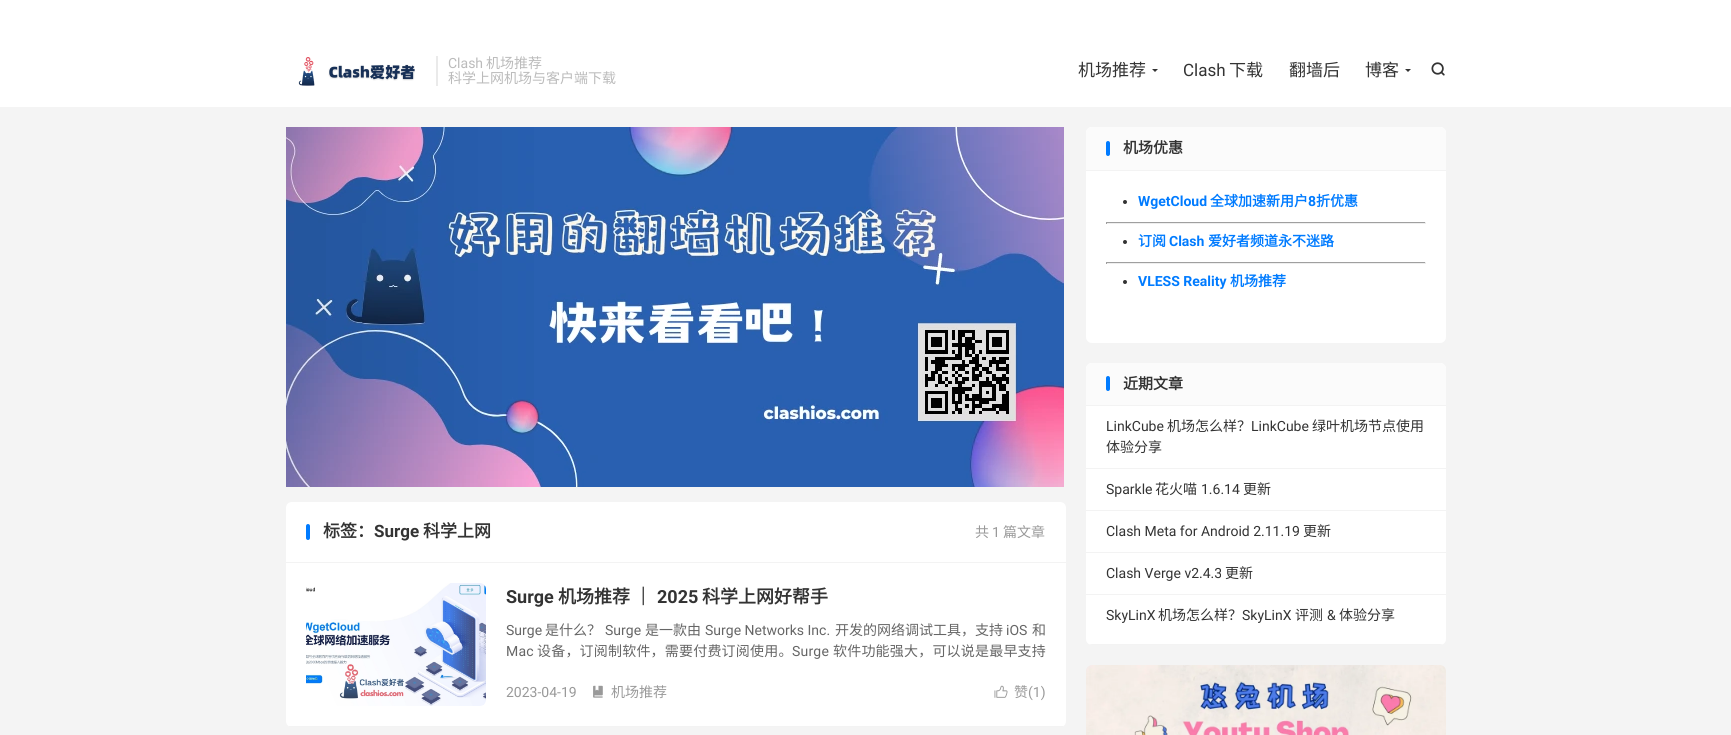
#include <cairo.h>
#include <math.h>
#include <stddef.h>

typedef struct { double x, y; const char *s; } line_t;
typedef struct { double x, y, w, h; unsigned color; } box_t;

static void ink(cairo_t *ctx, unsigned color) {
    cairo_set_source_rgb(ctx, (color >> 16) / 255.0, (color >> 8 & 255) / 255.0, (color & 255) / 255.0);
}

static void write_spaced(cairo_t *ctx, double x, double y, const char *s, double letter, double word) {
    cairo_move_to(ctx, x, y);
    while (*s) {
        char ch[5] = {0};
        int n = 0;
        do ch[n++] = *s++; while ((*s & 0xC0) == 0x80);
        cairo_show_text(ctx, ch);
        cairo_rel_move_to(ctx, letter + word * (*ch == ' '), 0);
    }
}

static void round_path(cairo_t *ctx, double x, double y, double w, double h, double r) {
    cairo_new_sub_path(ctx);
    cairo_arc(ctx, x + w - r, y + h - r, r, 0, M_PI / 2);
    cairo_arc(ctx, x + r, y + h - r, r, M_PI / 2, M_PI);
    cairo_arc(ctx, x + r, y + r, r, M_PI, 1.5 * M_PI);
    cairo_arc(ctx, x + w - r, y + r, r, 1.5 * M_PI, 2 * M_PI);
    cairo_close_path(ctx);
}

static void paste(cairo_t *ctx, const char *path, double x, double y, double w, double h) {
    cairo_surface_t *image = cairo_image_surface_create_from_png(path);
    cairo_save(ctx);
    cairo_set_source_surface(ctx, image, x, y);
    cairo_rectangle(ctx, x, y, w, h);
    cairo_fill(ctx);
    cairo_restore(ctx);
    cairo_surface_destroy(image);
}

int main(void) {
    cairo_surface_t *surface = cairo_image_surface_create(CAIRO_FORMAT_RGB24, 1731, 735);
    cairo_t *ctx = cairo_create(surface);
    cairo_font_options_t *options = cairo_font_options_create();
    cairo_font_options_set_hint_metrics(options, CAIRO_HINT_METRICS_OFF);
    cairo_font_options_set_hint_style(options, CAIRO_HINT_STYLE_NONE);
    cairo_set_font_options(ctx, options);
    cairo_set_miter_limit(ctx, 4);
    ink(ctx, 0xF4F4F4);
    cairo_paint(ctx);
    ink(ctx, 0xFFFFFF);
    cairo_rectangle(ctx, 0, 0, 1731, 107);
    cairo_fill(ctx);
    paste(ctx, "media/1.png", 298, 57, 117, 29);
    ink(ctx, 0xEAEAEA);
    cairo_rectangle(ctx, 436, 56, 2, 30);
    cairo_fill(ctx);
    cairo_select_font_face(ctx, "Roboto", CAIRO_FONT_SLANT_NORMAL, CAIRO_FONT_WEIGHT_NORMAL);
    cairo_set_font_size(ctx, 14);
    ink(ctx, 0xBBBBBB);
    cairo_move_to(ctx, 448, 68);
    cairo_show_text(ctx, "Clash");
    cairo_select_font_face(ctx, "Noto Sans CJK SC", CAIRO_FONT_SLANT_NORMAL, CAIRO_FONT_WEIGHT_NORMAL);
    cairo_move_to(ctx, 486, 68);
    cairo_show_text(ctx, "机场推荐");
    cairo_move_to(ctx, 448, 83);
    cairo_show_text(ctx, "科学上网机场与客户端下载");
    cairo_set_font_size(ctx, 17);
    ink(ctx, 0x333333);
    cairo_move_to(ctx, 1078, 76);
    cairo_show_text(ctx, "机场推荐");
    cairo_new_path(ctx);
    cairo_move_to(ctx, 1152, 69);
    cairo_line_to(ctx, 1158, 69);
    cairo_line_to(ctx, 1155, 72);
    cairo_close_path(ctx);
    cairo_fill(ctx);
    cairo_select_font_face(ctx, "Roboto", CAIRO_FONT_SLANT_NORMAL, CAIRO_FONT_WEIGHT_NORMAL);
    cairo_move_to(ctx, 1183, 76);
    cairo_show_text(ctx, "Clash");
    cairo_select_font_face(ctx, "Noto Sans CJK SC", CAIRO_FONT_SLANT_NORMAL, CAIRO_FONT_WEIGHT_NORMAL);
    {
        static const line_t items[] = {
            {1229, 76, "下载"},
            {1289, 76, "翻墙后"},
            {1365, 76, "博客"},
        };
        for (size_t i = 0; i < sizeof items / sizeof *items; i++) {
            cairo_move_to(ctx, items[i].x, items[i].y);
            cairo_show_text(ctx, items[i].s);
        }
    }
    cairo_new_path(ctx);
    cairo_move_to(ctx, 1405, 69);
    cairo_line_to(ctx, 1411, 69);
    cairo_line_to(ctx, 1408, 72);
    cairo_close_path(ctx);
    cairo_fill(ctx);
    paste(ctx, "media/2.png", 1431, 62, 14, 14);
    paste(ctx, "media/3.png", 286, 127, 778, 360);
    ink(ctx, 0xFFFFFF);
    cairo_new_path(ctx);
    cairo_move_to(ctx, 292, 502);
    cairo_line_to(ctx, 1060, 502);
    cairo_curve_to(ctx, 1063.5, 502, 1066, 504.5, 1066, 508);
    cairo_line_to(ctx, 1066, 563);
    cairo_line_to(ctx, 286, 563);
    cairo_line_to(ctx, 286, 508);
    cairo_curve_to(ctx, 286, 504.5, 288.5, 502, 292, 502);
    cairo_close_path(ctx);
    cairo_fill(ctx);
    ink(ctx, 0xF3F3F3);
    cairo_rectangle(ctx, 286, 562, 780, 1);
    cairo_fill(ctx);
    ink(ctx, 0x007BFF);
    round_path(ctx, 306, 524, 4, 16, 2);
    cairo_fill(ctx);
    cairo_select_font_face(ctx, "Noto Sans CJK SC", CAIRO_FONT_SLANT_NORMAL, CAIRO_FONT_WEIGHT_BOLD);
    ink(ctx, 0x333333);
    cairo_move_to(ctx, 323, 537);
    cairo_show_text(ctx, "标签：");
    cairo_select_font_face(ctx, "Roboto", CAIRO_FONT_SLANT_NORMAL, CAIRO_FONT_WEIGHT_BOLD);
    cairo_move_to(ctx, 374, 537);
    cairo_show_text(ctx, "Surge");
    cairo_select_font_face(ctx, "Noto Sans CJK SC", CAIRO_FONT_SLANT_NORMAL, CAIRO_FONT_WEIGHT_BOLD);
    cairo_move_to(ctx, 423, 537);
    cairo_show_text(ctx, "科学上网");
    cairo_select_font_face(ctx, "Noto Sans CJK SC", CAIRO_FONT_SLANT_NORMAL, CAIRO_FONT_WEIGHT_NORMAL);
    cairo_set_font_size(ctx, 14);
    ink(ctx, 0x999999);
    cairo_move_to(ctx, 975, 537);
    cairo_show_text(ctx, "共");
    cairo_select_font_face(ctx, "Roboto", CAIRO_FONT_SLANT_NORMAL, CAIRO_FONT_WEIGHT_NORMAL);
    cairo_move_to(ctx, 992, 537);
    cairo_show_text(ctx, "1");
    cairo_select_font_face(ctx, "Noto Sans CJK SC", CAIRO_FONT_SLANT_NORMAL, CAIRO_FONT_WEIGHT_NORMAL);
    cairo_move_to(ctx, 1003, 537);
    cairo_show_text(ctx, "篇文章");
    ink(ctx, 0xFFFFFF);
    cairo_new_path(ctx);
    cairo_move_to(ctx, 286, 563);
    cairo_line_to(ctx, 1066, 563);
    cairo_line_to(ctx, 1066, 721);
    cairo_curve_to(ctx, 1066, 724.5, 1063.5, 727, 1060, 727);
    cairo_line_to(ctx, 292, 727);
    cairo_curve_to(ctx, 288.5, 727, 286, 724.5, 286, 721);
    cairo_close_path(ctx);
    cairo_fill(ctx);
    ink(ctx, 0xF3F3F3);
    cairo_rectangle(ctx, 289, 726, 774, 1);
    cairo_fill(ctx);
    paste(ctx, "media/4.png", 306, 583, 180, 123);
    cairo_select_font_face(ctx, "Roboto", CAIRO_FONT_SLANT_NORMAL, CAIRO_FONT_WEIGHT_BOLD);
    cairo_set_font_size(ctx, 18);
    ink(ctx, 0x333333);
    cairo_move_to(ctx, 506, 603);
    cairo_show_text(ctx, "Surge");
    cairo_select_font_face(ctx, "Noto Sans CJK SC", CAIRO_FONT_SLANT_NORMAL, CAIRO_FONT_WEIGHT_BOLD);
    cairo_move_to(ctx, 558, 603);
    cairo_show_text(ctx, "机场推荐 ｜");
    cairo_select_font_face(ctx, "Roboto", CAIRO_FONT_SLANT_NORMAL, CAIRO_FONT_WEIGHT_BOLD);
    cairo_move_to(ctx, 657, 603);
    cairo_show_text(ctx, "2025");
    cairo_select_font_face(ctx, "Noto Sans CJK SC", CAIRO_FONT_SLANT_NORMAL, CAIRO_FONT_WEIGHT_BOLD);
    cairo_move_to(ctx, 702, 603);
    cairo_show_text(ctx, "科学上网好帮手");
    cairo_select_font_face(ctx, "Roboto", CAIRO_FONT_SLANT_NORMAL, CAIRO_FONT_WEIGHT_NORMAL);
    cairo_set_font_size(ctx, 14);
    ink(ctx, 0x666666);
    cairo_move_to(ctx, 506, 635);
    cairo_show_text(ctx, "Surge");
    cairo_select_font_face(ctx, "Noto Sans CJK SC", CAIRO_FONT_SLANT_NORMAL, CAIRO_FONT_WEIGHT_NORMAL);
    cairo_move_to(ctx, 545, 635);
    cairo_show_text(ctx, "是什么？");
    cairo_select_font_face(ctx, "Roboto", CAIRO_FONT_SLANT_NORMAL, CAIRO_FONT_WEIGHT_NORMAL);
    cairo_move_to(ctx, 605, 635);
    cairo_show_text(ctx, "Surge");
    cairo_select_font_face(ctx, "Noto Sans CJK SC", CAIRO_FONT_SLANT_NORMAL, CAIRO_FONT_WEIGHT_NORMAL);
    cairo_move_to(ctx, 645, 635);
    cairo_show_text(ctx, "是一款由");
    cairo_select_font_face(ctx, "Roboto", CAIRO_FONT_SLANT_NORMAL, CAIRO_FONT_WEIGHT_NORMAL);
    cairo_move_to(ctx, 705, 635);
    cairo_show_text(ctx, "Surge Networks Inc.");
    cairo_select_font_face(ctx, "Noto Sans CJK SC", CAIRO_FONT_SLANT_NORMAL, CAIRO_FONT_WEIGHT_NORMAL);
    cairo_move_to(ctx, 835, 635);
    cairo_show_text(ctx, "开发的网络调试工具，支持");
    cairo_select_font_face(ctx, "Roboto", CAIRO_FONT_SLANT_NORMAL, CAIRO_FONT_WEIGHT_NORMAL);
    cairo_move_to(ctx, 1006, 635);
    cairo_show_text(ctx, "iOS");
    cairo_select_font_face(ctx, "Noto Sans CJK SC", CAIRO_FONT_SLANT_NORMAL, CAIRO_FONT_WEIGHT_NORMAL);
    cairo_move_to(ctx, 1032, 635);
    cairo_show_text(ctx, "和");
    cairo_select_font_face(ctx, "Roboto", CAIRO_FONT_SLANT_NORMAL, CAIRO_FONT_WEIGHT_NORMAL);
    write_spaced(ctx, 506, 656, "Mac", 0.2, 0);
    cairo_select_font_face(ctx, "Noto Sans CJK SC", CAIRO_FONT_SLANT_NORMAL, CAIRO_FONT_WEIGHT_NORMAL);
    write_spaced(ctx, 537, 656, "设备，订阅制软件，需要付费订阅使用。", 0.2, 0);
    cairo_select_font_face(ctx, "Roboto", CAIRO_FONT_SLANT_NORMAL, CAIRO_FONT_WEIGHT_NORMAL);
    write_spaced(ctx, 792, 656, "Surge", 0.2, 0);
    cairo_select_font_face(ctx, "Noto Sans CJK SC", CAIRO_FONT_SLANT_NORMAL, CAIRO_FONT_WEIGHT_NORMAL);
    write_spaced(ctx, 833, 656, "软件功能强大，可以说是最早支持", 0.2, 0);
    cairo_select_font_face(ctx, "Roboto", CAIRO_FONT_SLANT_NORMAL, CAIRO_FONT_WEIGHT_NORMAL);
    ink(ctx, 0x999999);
    cairo_move_to(ctx, 506, 697);
    cairo_show_text(ctx, "2023-04-19");
    paste(ctx, "media/5.png", 593, 685, 10, 13);
    cairo_select_font_face(ctx, "Noto Sans CJK SC", CAIRO_FONT_SLANT_NORMAL, CAIRO_FONT_WEIGHT_NORMAL);
    cairo_move_to(ctx, 611, 697);
    cairo_show_text(ctx, "机场推荐");
    paste(ctx, "media/6.png", 994, 685, 14, 13);
    cairo_move_to(ctx, 1014, 697);
    cairo_show_text(ctx, "赞");
    cairo_select_font_face(ctx, "Roboto", CAIRO_FONT_SLANT_NORMAL, CAIRO_FONT_WEIGHT_NORMAL);
    cairo_move_to(ctx, 1028, 697);
    cairo_show_text(ctx, "(1)");
    ink(ctx, 0xFFFFFF);
    round_path(ctx, 1086, 127, 360, 216, 6);
    cairo_fill(ctx);
    ink(ctx, 0xFBFBFB);
    cairo_new_path(ctx);
    cairo_move_to(ctx, 1092, 127);
    cairo_line_to(ctx, 1440, 127);
    cairo_curve_to(ctx, 1443.5, 127, 1446, 129.5, 1446, 133);
    cairo_line_to(ctx, 1446, 171);
    cairo_line_to(ctx, 1086, 171);
    cairo_line_to(ctx, 1086, 133);
    cairo_curve_to(ctx, 1086, 129.5, 1088.5, 127, 1092, 127);
    cairo_close_path(ctx);
    cairo_fill(ctx);
    ink(ctx, 0xF3F3F3);
    cairo_rectangle(ctx, 1086, 170, 360, 1);
    cairo_fill(ctx);
    ink(ctx, 0x007BFF);
    round_path(ctx, 1106, 141, 4, 15, 2);
    cairo_fill(ctx);
    cairo_select_font_face(ctx, "Noto Sans CJK SC", CAIRO_FONT_SLANT_NORMAL, CAIRO_FONT_WEIGHT_BOLD);
    cairo_set_font_size(ctx, 15);
    ink(ctx, 0x333333);
    cairo_move_to(ctx, 1123, 153);
    cairo_show_text(ctx, "机场优惠");
    cairo_new_path(ctx);
    cairo_arc(ctx, 1125, 202, 2, 0, 2 * M_PI);
    cairo_fill(ctx);
    cairo_select_font_face(ctx, "Roboto", CAIRO_FONT_SLANT_NORMAL, CAIRO_FONT_WEIGHT_BOLD);
    cairo_set_font_size(ctx, 14);
    ink(ctx, 0x007BFF);
    cairo_move_to(ctx, 1138, 206);
    cairo_show_text(ctx, "WgetCloud");
    cairo_select_font_face(ctx, "Noto Sans CJK SC", CAIRO_FONT_SLANT_NORMAL, CAIRO_FONT_WEIGHT_BOLD);
    cairo_move_to(ctx, 1210, 206);
    cairo_show_text(ctx, "全球加速新用户");
    cairo_select_font_face(ctx, "Roboto", CAIRO_FONT_SLANT_NORMAL, CAIRO_FONT_WEIGHT_BOLD);
    cairo_move_to(ctx, 1308, 206);
    cairo_show_text(ctx, "8");
    cairo_select_font_face(ctx, "Noto Sans CJK SC", CAIRO_FONT_SLANT_NORMAL, CAIRO_FONT_WEIGHT_BOLD);
    cairo_move_to(ctx, 1316, 206);
    cairo_show_text(ctx, "折优惠");
    {
        static const box_t items[] = {
            {1106, 222, 320, 1, 0x9F9F9F},
            {1425, 222, 1, 2, 0xEEEEEE},
            {1106, 223, 320, 1, 0xEEEEEE},
            {1106, 222, 1, 2, 0x9F9F9F},
        };
        for (size_t i = 0; i < sizeof items / sizeof *items; i++) {
            ink(ctx, items[i].color);
            cairo_rectangle(ctx, items[i].x, items[i].y, items[i].w, items[i].h);
            cairo_fill(ctx);
        }
    }
    ink(ctx, 0x333333);
    cairo_new_path(ctx);
    cairo_arc(ctx, 1125, 242, 2, 0, 2 * M_PI);
    cairo_fill(ctx);
    ink(ctx, 0x007BFF);
    cairo_move_to(ctx, 1138, 246);
    cairo_show_text(ctx, "订阅");
    cairo_select_font_face(ctx, "Roboto", CAIRO_FONT_SLANT_NORMAL, CAIRO_FONT_WEIGHT_BOLD);
    cairo_move_to(ctx, 1169, 246);
    cairo_show_text(ctx, "Clash");
    cairo_select_font_face(ctx, "Noto Sans CJK SC", CAIRO_FONT_SLANT_NORMAL, CAIRO_FONT_WEIGHT_BOLD);
    cairo_move_to(ctx, 1208, 246);
    cairo_show_text(ctx, "爱好者频道永不迷路");
    {
        static const box_t items[] = {
            {1106, 262, 320, 1, 0x9F9F9F},
            {1425, 262, 1, 2, 0xEEEEEE},
            {1106, 263, 320, 1, 0xEEEEEE},
            {1106, 262, 1, 2, 0x9F9F9F},
        };
        for (size_t i = 0; i < sizeof items / sizeof *items; i++) {
            ink(ctx, items[i].color);
            cairo_rectangle(ctx, items[i].x, items[i].y, items[i].w, items[i].h);
            cairo_fill(ctx);
        }
    }
    ink(ctx, 0x333333);
    cairo_new_path(ctx);
    cairo_arc(ctx, 1125, 282, 2, 0, 2 * M_PI);
    cairo_fill(ctx);
    cairo_select_font_face(ctx, "Roboto", CAIRO_FONT_SLANT_NORMAL, CAIRO_FONT_WEIGHT_BOLD);
    ink(ctx, 0x007BFF);
    cairo_move_to(ctx, 1138, 286);
    cairo_show_text(ctx, "VLESS Reality");
    cairo_select_font_face(ctx, "Noto Sans CJK SC", CAIRO_FONT_SLANT_NORMAL, CAIRO_FONT_WEIGHT_BOLD);
    cairo_move_to(ctx, 1230, 286);
    cairo_show_text(ctx, "机场推荐");
    ink(ctx, 0xFFFFFF);
    round_path(ctx, 1086, 363, 360, 282, 6);
    cairo_fill(ctx);
    ink(ctx, 0xFBFBFB);
    cairo_new_path(ctx);
    cairo_move_to(ctx, 1092, 363);
    cairo_line_to(ctx, 1440, 363);
    cairo_curve_to(ctx, 1443.5, 363, 1446, 365.5, 1446, 369);
    cairo_line_to(ctx, 1446, 406);
    cairo_line_to(ctx, 1086, 406);
    cairo_line_to(ctx, 1086, 369);
    cairo_curve_to(ctx, 1086, 365.5, 1088.5, 363, 1092, 363);
    cairo_close_path(ctx);
    cairo_fill(ctx);
    ink(ctx, 0xF3F3F3);
    cairo_rectangle(ctx, 1086, 405, 360, 1);
    cairo_fill(ctx);
    ink(ctx, 0x007BFF);
    round_path(ctx, 1106, 376, 4, 15, 2);
    cairo_fill(ctx);
    cairo_set_font_size(ctx, 15);
    ink(ctx, 0x333333);
    cairo_move_to(ctx, 1123, 389);
    cairo_show_text(ctx, "近期文章");
    ink(ctx, 0xF3F3F3);
    cairo_rectangle(ctx, 1086, 468, 360, 1);
    cairo_fill(ctx);
    cairo_select_font_face(ctx, "Roboto", CAIRO_FONT_SLANT_NORMAL, CAIRO_FONT_WEIGHT_NORMAL);
    cairo_set_font_size(ctx, 14);
    ink(ctx, 0x333333);
    cairo_move_to(ctx, 1106, 431);
    cairo_show_text(ctx, "LinkCube");
    cairo_select_font_face(ctx, "Noto Sans CJK SC", CAIRO_FONT_SLANT_NORMAL, CAIRO_FONT_WEIGHT_NORMAL);
    cairo_move_to(ctx, 1167, 431);
    cairo_show_text(ctx, "机场怎么样？");
    cairo_select_font_face(ctx, "Roboto", CAIRO_FONT_SLANT_NORMAL, CAIRO_FONT_WEIGHT_NORMAL);
    cairo_move_to(ctx, 1251, 431);
    cairo_show_text(ctx, "LinkCube");
    cairo_select_font_face(ctx, "Noto Sans CJK SC", CAIRO_FONT_SLANT_NORMAL, CAIRO_FONT_WEIGHT_NORMAL);
    cairo_move_to(ctx, 1312, 431);
    cairo_show_text(ctx, "绿叶机场节点使用");
    cairo_move_to(ctx, 1106, 452);
    cairo_show_text(ctx, "体验分享");
    ink(ctx, 0xF3F3F3);
    cairo_rectangle(ctx, 1086, 510, 360, 1);
    cairo_fill(ctx);
    cairo_select_font_face(ctx, "Roboto", CAIRO_FONT_SLANT_NORMAL, CAIRO_FONT_WEIGHT_NORMAL);
    ink(ctx, 0x333333);
    cairo_move_to(ctx, 1106, 494);
    cairo_show_text(ctx, "Sparkle");
    cairo_select_font_face(ctx, "Noto Sans CJK SC", CAIRO_FONT_SLANT_NORMAL, CAIRO_FONT_WEIGHT_NORMAL);
    cairo_move_to(ctx, 1155, 494);
    cairo_show_text(ctx, "花火喵");
    cairo_select_font_face(ctx, "Roboto", CAIRO_FONT_SLANT_NORMAL, CAIRO_FONT_WEIGHT_NORMAL);
    cairo_move_to(ctx, 1201, 494);
    cairo_show_text(ctx, "1.6.14");
    cairo_select_font_face(ctx, "Noto Sans CJK SC", CAIRO_FONT_SLANT_NORMAL, CAIRO_FONT_WEIGHT_NORMAL);
    cairo_move_to(ctx, 1243, 494);
    cairo_show_text(ctx, "更新");
    ink(ctx, 0xF3F3F3);
    cairo_rectangle(ctx, 1086, 552, 360, 1);
    cairo_fill(ctx);
    cairo_select_font_face(ctx, "Roboto", CAIRO_FONT_SLANT_NORMAL, CAIRO_FONT_WEIGHT_NORMAL);
    ink(ctx, 0x333333);
    cairo_move_to(ctx, 1106, 536);
    cairo_show_text(ctx, "Clash Meta for Android 2.11.19");
    cairo_select_font_face(ctx, "Noto Sans CJK SC", CAIRO_FONT_SLANT_NORMAL, CAIRO_FONT_WEIGHT_NORMAL);
    cairo_move_to(ctx, 1303, 536);
    cairo_show_text(ctx, "更新");
    ink(ctx, 0xF3F3F3);
    cairo_rectangle(ctx, 1086, 594, 360, 1);
    cairo_fill(ctx);
    cairo_select_font_face(ctx, "Roboto", CAIRO_FONT_SLANT_NORMAL, CAIRO_FONT_WEIGHT_NORMAL);
    ink(ctx, 0x333333);
    cairo_move_to(ctx, 1106, 578);
    cairo_show_text(ctx, "Clash Verge v2.4.3");
    cairo_select_font_face(ctx, "Noto Sans CJK SC", CAIRO_FONT_SLANT_NORMAL, CAIRO_FONT_WEIGHT_NORMAL);
    cairo_move_to(ctx, 1225, 578);
    cairo_show_text(ctx, "更新");
    cairo_save(ctx);
    round_path(ctx, 1086, 363, 360, 282, 6);
    cairo_clip(ctx);
    ink(ctx, 0xF3F3F3);
    cairo_rectangle(ctx, 1086, 644, 360, 1);
    cairo_fill(ctx);
    cairo_restore(ctx);
    cairo_select_font_face(ctx, "Roboto", CAIRO_FONT_SLANT_NORMAL, CAIRO_FONT_WEIGHT_NORMAL);
    cairo_move_to(ctx, 1106, 620);
    cairo_show_text(ctx, "SkyLinX");
    cairo_select_font_face(ctx, "Noto Sans CJK SC", CAIRO_FONT_SLANT_NORMAL, CAIRO_FONT_WEIGHT_NORMAL);
    cairo_move_to(ctx, 1158, 620);
    cairo_show_text(ctx, "机场怎么样？");
    cairo_select_font_face(ctx, "Roboto", CAIRO_FONT_SLANT_NORMAL, CAIRO_FONT_WEIGHT_NORMAL);
    cairo_move_to(ctx, 1242, 620);
    cairo_show_text(ctx, "SkyLinX");
    cairo_select_font_face(ctx, "Noto Sans CJK SC", CAIRO_FONT_SLANT_NORMAL, CAIRO_FONT_WEIGHT_NORMAL);
    cairo_move_to(ctx, 1295, 620);
    cairo_show_text(ctx, "评测");
    cairo_select_font_face(ctx, "Roboto", CAIRO_FONT_SLANT_NORMAL, CAIRO_FONT_WEIGHT_NORMAL);
    cairo_move_to(ctx, 1327, 620);
    cairo_show_text(ctx, "&");
    cairo_select_font_face(ctx, "Noto Sans CJK SC", CAIRO_FONT_SLANT_NORMAL, CAIRO_FONT_WEIGHT_NORMAL);
    cairo_move_to(ctx, 1339, 620);
    cairo_show_text(ctx, "体验分享");
    paste(ctx, "media/7.png", 1086, 665, 360, 70);
    cairo_surface_write_to_png(surface, "image.png");
    cairo_font_options_destroy(options);
    cairo_destroy(ctx);
    cairo_surface_destroy(surface);
    return 0;
}
